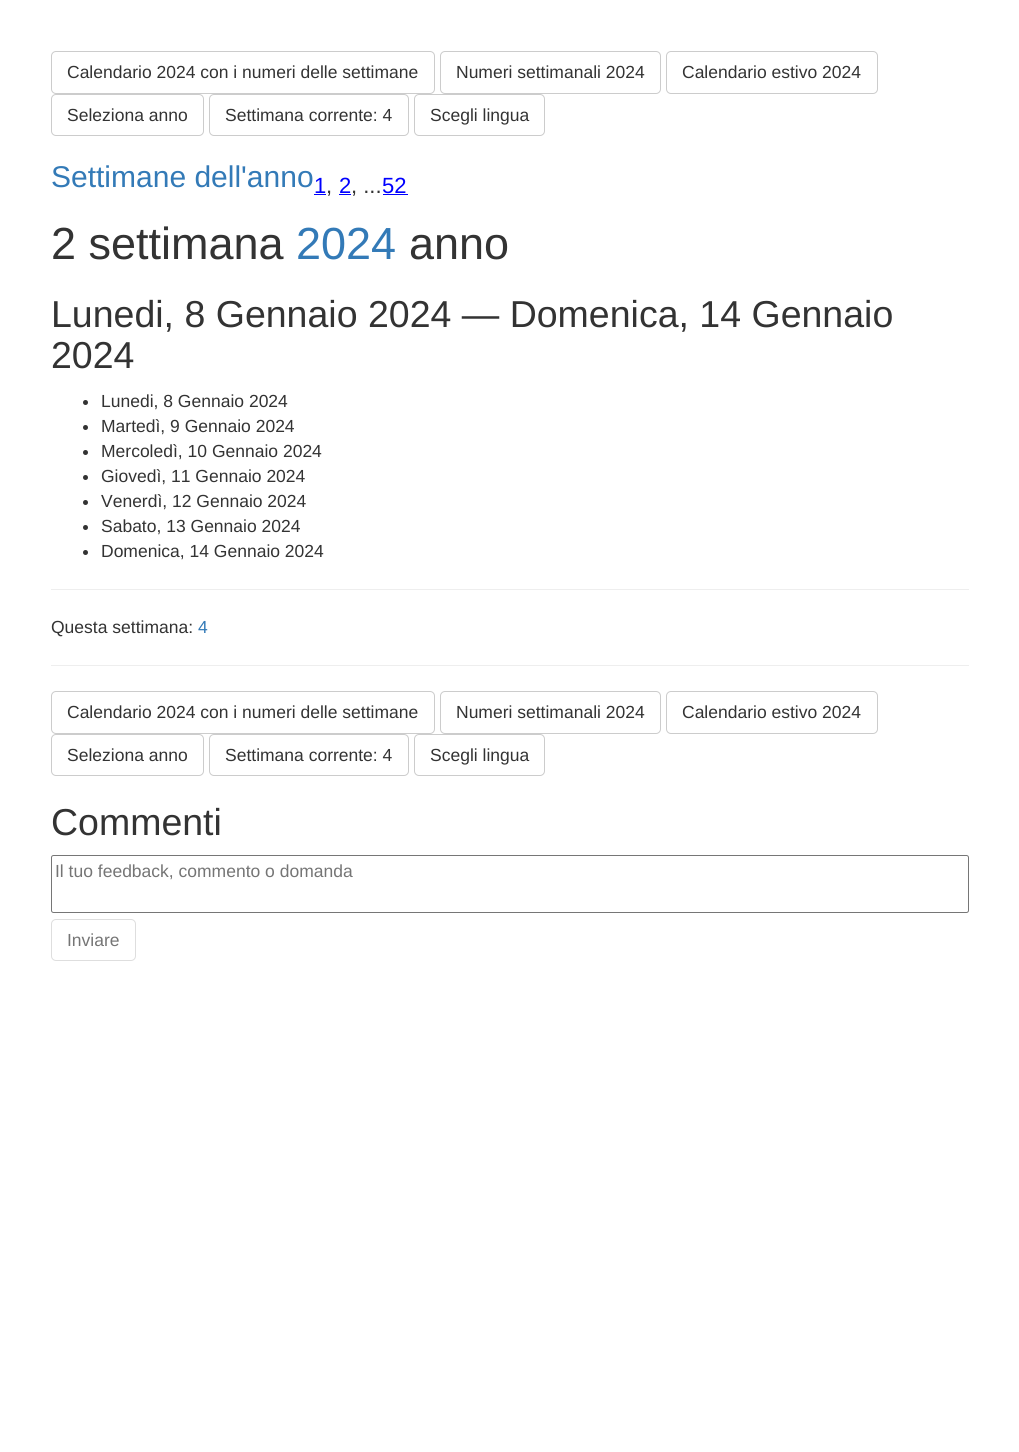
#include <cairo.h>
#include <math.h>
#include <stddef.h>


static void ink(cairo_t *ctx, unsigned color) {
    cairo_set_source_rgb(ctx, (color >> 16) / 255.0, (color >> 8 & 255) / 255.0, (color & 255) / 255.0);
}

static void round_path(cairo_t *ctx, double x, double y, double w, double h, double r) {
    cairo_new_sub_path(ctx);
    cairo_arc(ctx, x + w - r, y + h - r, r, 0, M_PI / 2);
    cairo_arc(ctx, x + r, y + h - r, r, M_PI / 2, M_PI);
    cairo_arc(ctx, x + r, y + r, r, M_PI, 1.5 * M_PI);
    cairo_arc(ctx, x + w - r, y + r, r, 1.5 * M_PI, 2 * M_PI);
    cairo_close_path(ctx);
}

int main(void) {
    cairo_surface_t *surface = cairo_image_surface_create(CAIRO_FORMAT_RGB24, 1019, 1452);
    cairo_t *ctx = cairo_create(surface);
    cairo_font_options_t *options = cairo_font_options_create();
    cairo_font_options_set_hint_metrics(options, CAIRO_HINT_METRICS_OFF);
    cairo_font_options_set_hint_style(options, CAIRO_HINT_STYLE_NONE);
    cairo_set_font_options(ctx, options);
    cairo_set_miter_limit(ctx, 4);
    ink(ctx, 0xFFFFFF);
    cairo_paint(ctx);
    round_path(ctx, 51.5, 51.5, 383, 42, 4.5);
    ink(ctx, 0xCCCCCC);
    cairo_set_line_width(ctx, 1);
    cairo_stroke(ctx);
    cairo_select_font_face(ctx, "Liberation Sans", CAIRO_FONT_SLANT_NORMAL, CAIRO_FONT_WEIGHT_NORMAL);
    cairo_set_font_size(ctx, 17.5);
    ink(ctx, 0x333333);
    cairo_move_to(ctx, 67, 78);
    cairo_show_text(ctx, "Calendario 2024 con i numeri delle settimane");
    round_path(ctx, 440.5, 51.5, 220, 42, 4.5);
    ink(ctx, 0xCCCCCC);
    cairo_stroke(ctx);
    ink(ctx, 0x333333);
    cairo_move_to(ctx, 456, 78);
    cairo_show_text(ctx, "Numeri settimanali 2024");
    round_path(ctx, 666.5, 51.5, 211, 42, 4.5);
    ink(ctx, 0xCCCCCC);
    cairo_stroke(ctx);
    ink(ctx, 0x333333);
    cairo_move_to(ctx, 682, 78);
    cairo_show_text(ctx, "Calendario estivo 2024");
    round_path(ctx, 51.5, 94.5, 152, 41, 4.5);
    ink(ctx, 0xCCCCCC);
    cairo_stroke(ctx);
    ink(ctx, 0x333333);
    cairo_move_to(ctx, 67, 121);
    cairo_show_text(ctx, "Seleziona anno");
    round_path(ctx, 209.5, 94.5, 199, 41, 4.5);
    ink(ctx, 0xCCCCCC);
    cairo_stroke(ctx);
    ink(ctx, 0x333333);
    cairo_move_to(ctx, 225, 121);
    cairo_show_text(ctx, "Settimana corrente: 4");
    round_path(ctx, 414.5, 94.5, 130, 41, 4.5);
    ink(ctx, 0xCCCCCC);
    cairo_stroke(ctx);
    ink(ctx, 0x333333);
    cairo_move_to(ctx, 430, 121);
    cairo_show_text(ctx, "Scegli lingua");
    cairo_set_font_size(ctx, 30);
    ink(ctx, 0x337AB7);
    cairo_move_to(ctx, 51, 187);
    cairo_show_text(ctx, "Settimane dell'anno");
    cairo_set_font_size(ctx, 22);
    ink(ctx, 0x0000FF);
    cairo_move_to(ctx, 314, 193);
    cairo_show_text(ctx, "1");
    ink(ctx, 0x333333);
    cairo_move_to(ctx, 326, 193);
    cairo_show_text(ctx, ",");
    ink(ctx, 0x0000FF);
    cairo_rectangle(ctx, 314, 194, 12, 1);
    cairo_fill(ctx);
    cairo_move_to(ctx, 339, 193);
    cairo_show_text(ctx, "2");
    ink(ctx, 0x333333);
    cairo_move_to(ctx, 351, 193);
    cairo_show_text(ctx, ", ...");
    ink(ctx, 0x0000FF);
    cairo_rectangle(ctx, 339, 194, 12, 1);
    cairo_fill(ctx);
    cairo_rectangle(ctx, 383, 194, 25, 1);
    cairo_fill(ctx);
    cairo_move_to(ctx, 382, 193);
    cairo_show_text(ctx, "52");
    cairo_set_font_size(ctx, 45);
    ink(ctx, 0x333333);
    cairo_move_to(ctx, 51, 259);
    cairo_show_text(ctx, "2 settimana");
    ink(ctx, 0x337AB7);
    cairo_move_to(ctx, 296, 259);
    cairo_show_text(ctx, "2024");
    ink(ctx, 0x333333);
    cairo_move_to(ctx, 409, 259);
    cairo_show_text(ctx, "anno");
    cairo_set_font_size(ctx, 37.5);
    cairo_move_to(ctx, 51, 327);
    cairo_show_text(ctx, "Lunedi, 8 Gennaio 2024 — Domenica, 14 Gennaio");
    cairo_move_to(ctx, 51, 368);
    cairo_show_text(ctx, "2024");
    cairo_new_path(ctx);
    cairo_arc(ctx, 85.5, 402.5, 2.5, 0, 2 * M_PI);
    cairo_fill(ctx);
    cairo_set_font_size(ctx, 17.5);
    cairo_move_to(ctx, 101, 407);
    cairo_show_text(ctx, "Lunedi, 8 Gennaio 2024");
    cairo_new_path(ctx);
    cairo_arc(ctx, 85.5, 427.5, 2.5, 0, 2 * M_PI);
    cairo_fill(ctx);
    cairo_move_to(ctx, 101, 432);
    cairo_show_text(ctx, "Martedì, 9 Gennaio 2024");
    cairo_new_path(ctx);
    cairo_arc(ctx, 85.5, 452.5, 2.5, 0, 2 * M_PI);
    cairo_fill(ctx);
    cairo_move_to(ctx, 101, 457);
    cairo_show_text(ctx, "Mercoledì, 10 Gennaio 2024");
    cairo_new_path(ctx);
    cairo_arc(ctx, 85.5, 477.5, 2.5, 0, 2 * M_PI);
    cairo_fill(ctx);
    cairo_move_to(ctx, 101, 482);
    cairo_show_text(ctx, "Giovedì, 11 Gennaio 2024");
    cairo_new_path(ctx);
    cairo_arc(ctx, 85.5, 502.5, 2.5, 0, 2 * M_PI);
    cairo_fill(ctx);
    cairo_move_to(ctx, 101, 507);
    cairo_show_text(ctx, "Venerdì, 12 Gennaio 2024");
    cairo_new_path(ctx);
    cairo_arc(ctx, 85.5, 527.5, 2.5, 0, 2 * M_PI);
    cairo_fill(ctx);
    cairo_move_to(ctx, 101, 532);
    cairo_show_text(ctx, "Sabato, 13 Gennaio 2024");
    cairo_new_path(ctx);
    cairo_arc(ctx, 85.5, 552.5, 2.5, 0, 2 * M_PI);
    cairo_fill(ctx);
    cairo_move_to(ctx, 101, 557);
    cairo_show_text(ctx, "Domenica, 14 Gennaio 2024");
    ink(ctx, 0xEEEEEE);
    cairo_rectangle(ctx, 51, 589, 918, 1);
    cairo_fill(ctx);
    ink(ctx, 0x333333);
    cairo_move_to(ctx, 51, 633);
    cairo_show_text(ctx, "Questa settimana:");
    ink(ctx, 0x337AB7);
    cairo_move_to(ctx, 198, 633);
    cairo_show_text(ctx, "4");
    ink(ctx, 0xEEEEEE);
    cairo_rectangle(ctx, 51, 665, 918, 1);
    cairo_fill(ctx);
    round_path(ctx, 51.5, 691.5, 383, 42, 4.5);
    ink(ctx, 0xCCCCCC);
    cairo_stroke(ctx);
    ink(ctx, 0x333333);
    cairo_move_to(ctx, 67, 718);
    cairo_show_text(ctx, "Calendario 2024 con i numeri delle settimane");
    round_path(ctx, 440.5, 691.5, 220, 42, 4.5);
    ink(ctx, 0xCCCCCC);
    cairo_stroke(ctx);
    ink(ctx, 0x333333);
    cairo_move_to(ctx, 456, 718);
    cairo_show_text(ctx, "Numeri settimanali 2024");
    round_path(ctx, 666.5, 691.5, 211, 42, 4.5);
    ink(ctx, 0xCCCCCC);
    cairo_stroke(ctx);
    ink(ctx, 0x333333);
    cairo_move_to(ctx, 682, 718);
    cairo_show_text(ctx, "Calendario estivo 2024");
    round_path(ctx, 51.5, 734.5, 152, 41, 4.5);
    ink(ctx, 0xCCCCCC);
    cairo_stroke(ctx);
    ink(ctx, 0x333333);
    cairo_move_to(ctx, 67, 761);
    cairo_show_text(ctx, "Seleziona anno");
    round_path(ctx, 209.5, 734.5, 199, 41, 4.5);
    ink(ctx, 0xCCCCCC);
    cairo_stroke(ctx);
    ink(ctx, 0x333333);
    cairo_move_to(ctx, 225, 761);
    cairo_show_text(ctx, "Settimana corrente: 4");
    round_path(ctx, 414.5, 734.5, 130, 41, 4.5);
    ink(ctx, 0xCCCCCC);
    cairo_stroke(ctx);
    ink(ctx, 0x333333);
    cairo_move_to(ctx, 430, 761);
    cairo_show_text(ctx, "Scegli lingua");
    cairo_set_font_size(ctx, 37.5);
    cairo_move_to(ctx, 51, 835);
    cairo_show_text(ctx, "Commenti");
    round_path(ctx, 51.5, 855.5, 917, 57, 2);
    ink(ctx, 0x767676);
    cairo_stroke(ctx);
    cairo_set_font_size(ctx, 17.5);
    ink(ctx, 0x757575);
    cairo_move_to(ctx, 55, 877);
    cairo_show_text(ctx, "Il tuo feedback, commento o domanda");
    round_path(ctx, 51.5, 919.5, 84, 41, 4.5);
    ink(ctx, 0xDEDEDE);
    cairo_stroke(ctx);
    ink(ctx, 0x757575);
    cairo_move_to(ctx, 67, 946);
    cairo_show_text(ctx, "Inviare");
    cairo_surface_write_to_png(surface, "image.png");
    cairo_font_options_destroy(options);
    cairo_destroy(ctx);
    cairo_surface_destroy(surface);
    return 0;
}
